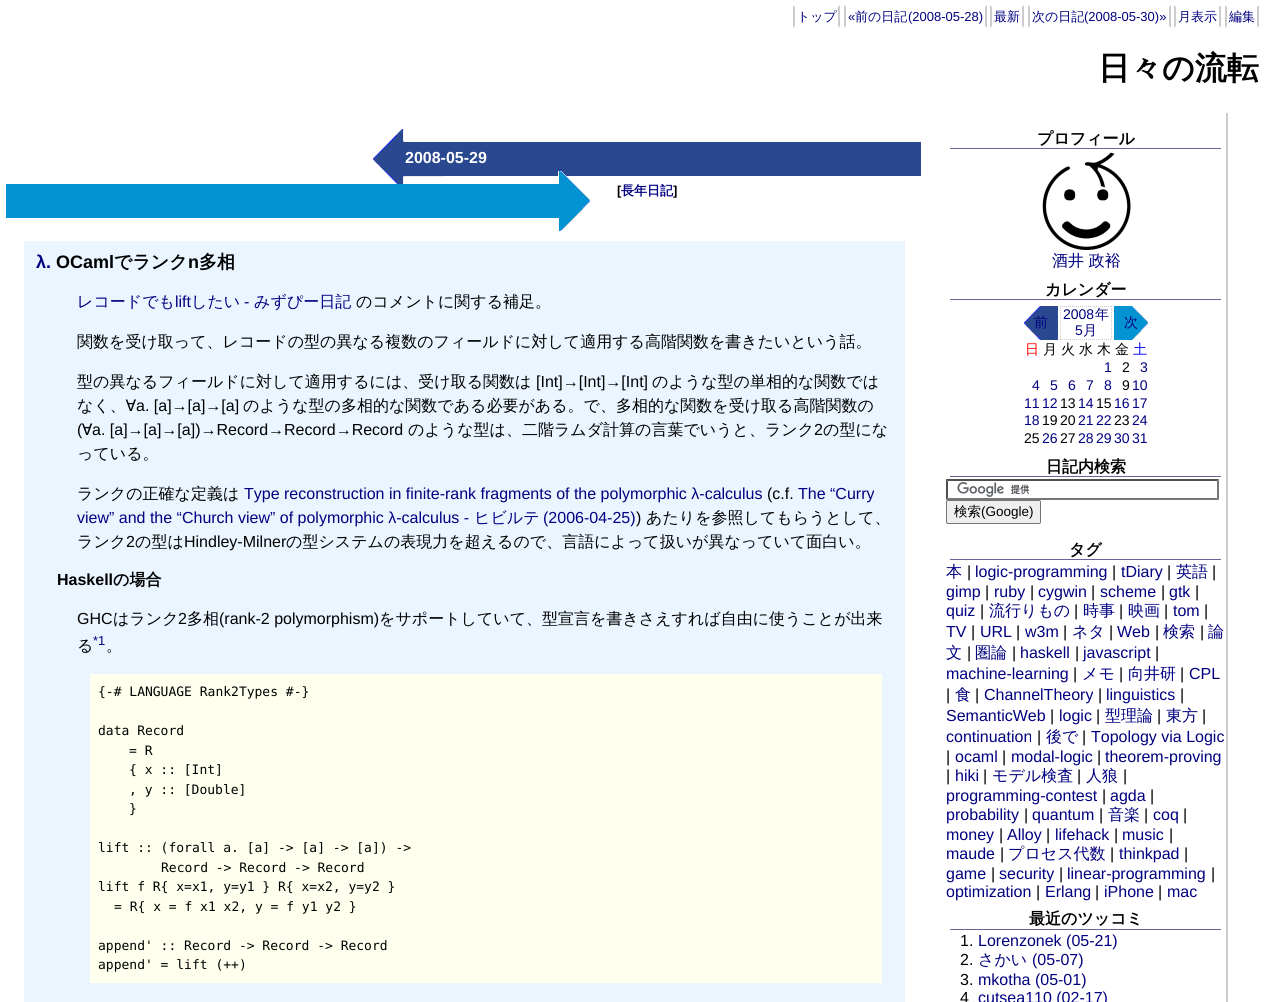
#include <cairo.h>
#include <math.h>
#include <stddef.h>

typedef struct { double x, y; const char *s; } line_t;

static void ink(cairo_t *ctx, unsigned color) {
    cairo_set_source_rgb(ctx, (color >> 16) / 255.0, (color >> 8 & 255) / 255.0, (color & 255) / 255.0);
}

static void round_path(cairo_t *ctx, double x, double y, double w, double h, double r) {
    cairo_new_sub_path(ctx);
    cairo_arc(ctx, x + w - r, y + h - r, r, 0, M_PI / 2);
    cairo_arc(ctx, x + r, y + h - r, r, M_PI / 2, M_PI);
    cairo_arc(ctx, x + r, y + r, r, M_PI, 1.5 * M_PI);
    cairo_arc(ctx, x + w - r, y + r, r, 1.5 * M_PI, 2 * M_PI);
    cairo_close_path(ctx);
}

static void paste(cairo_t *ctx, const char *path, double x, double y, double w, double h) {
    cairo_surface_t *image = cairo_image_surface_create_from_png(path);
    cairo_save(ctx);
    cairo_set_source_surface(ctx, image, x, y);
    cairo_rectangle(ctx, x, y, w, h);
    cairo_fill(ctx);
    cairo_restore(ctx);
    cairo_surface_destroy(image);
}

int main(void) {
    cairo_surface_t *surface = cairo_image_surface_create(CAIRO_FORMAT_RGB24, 1267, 1002);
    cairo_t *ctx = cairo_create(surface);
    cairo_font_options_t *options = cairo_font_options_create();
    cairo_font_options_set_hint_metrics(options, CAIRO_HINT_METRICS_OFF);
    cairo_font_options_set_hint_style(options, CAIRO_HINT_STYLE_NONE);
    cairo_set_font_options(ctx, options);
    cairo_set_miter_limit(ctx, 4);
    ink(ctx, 0xFFFFFF);
    cairo_paint(ctx);
    cairo_select_font_face(ctx, "WenQuanYi Zen Hei Medium", CAIRO_FONT_SLANT_NORMAL, CAIRO_FONT_WEIGHT_NORMAL);
    cairo_set_font_size(ctx, 13);
    ink(ctx, 0x000080);
    cairo_move_to(ctx, 797, 21);
    cairo_show_text(ctx, "トップ");
    ink(ctx, 0xCCCCCC);
    cairo_new_path(ctx);
    cairo_move_to(ctx, 840, 5);
    cairo_line_to(ctx, 840, 28);
    cairo_line_to(ctx, 838, 26);
    cairo_line_to(ctx, 838, 7);
    cairo_close_path(ctx);
    cairo_fill(ctx);
    ink(ctx, 0xFFFFFF);
    cairo_new_path(ctx);
    cairo_move_to(ctx, 840, 28);
    cairo_line_to(ctx, 793, 28);
    cairo_line_to(ctx, 795, 26);
    cairo_line_to(ctx, 838, 26);
    cairo_close_path(ctx);
    cairo_fill(ctx);
    ink(ctx, 0xCCCCCC);
    cairo_new_path(ctx);
    cairo_move_to(ctx, 793, 28);
    cairo_line_to(ctx, 793, 5);
    cairo_line_to(ctx, 795, 7);
    cairo_line_to(ctx, 795, 26);
    cairo_close_path(ctx);
    cairo_fill(ctx);
    cairo_select_font_face(ctx, "Liberation Sans", CAIRO_FONT_SLANT_NORMAL, CAIRO_FONT_WEIGHT_NORMAL);
    ink(ctx, 0x000080);
    cairo_move_to(ctx, 848, 21);
    cairo_show_text(ctx, "«");
    ink(ctx, 0xCCCCCC);
    cairo_new_path(ctx);
    cairo_move_to(ctx, 987, 5);
    cairo_line_to(ctx, 987, 28);
    cairo_line_to(ctx, 985, 26);
    cairo_line_to(ctx, 985, 7);
    cairo_close_path(ctx);
    cairo_fill(ctx);
    ink(ctx, 0xFFFFFF);
    cairo_new_path(ctx);
    cairo_move_to(ctx, 987, 28);
    cairo_line_to(ctx, 844, 28);
    cairo_line_to(ctx, 846, 26);
    cairo_line_to(ctx, 985, 26);
    cairo_close_path(ctx);
    cairo_fill(ctx);
    ink(ctx, 0xCCCCCC);
    cairo_new_path(ctx);
    cairo_move_to(ctx, 844, 28);
    cairo_line_to(ctx, 844, 5);
    cairo_line_to(ctx, 846, 7);
    cairo_line_to(ctx, 846, 26);
    cairo_close_path(ctx);
    cairo_fill(ctx);
    cairo_select_font_face(ctx, "WenQuanYi Zen Hei Medium", CAIRO_FONT_SLANT_NORMAL, CAIRO_FONT_WEIGHT_NORMAL);
    ink(ctx, 0x000080);
    cairo_move_to(ctx, 855, 21);
    cairo_show_text(ctx, "前の日記");
    cairo_select_font_face(ctx, "Liberation Sans", CAIRO_FONT_SLANT_NORMAL, CAIRO_FONT_WEIGHT_NORMAL);
    cairo_move_to(ctx, 908, 21);
    cairo_show_text(ctx, "(2008-05-28)");
    cairo_select_font_face(ctx, "WenQuanYi Zen Hei Medium", CAIRO_FONT_SLANT_NORMAL, CAIRO_FONT_WEIGHT_NORMAL);
    cairo_move_to(ctx, 994, 21);
    cairo_show_text(ctx, "最新");
    ink(ctx, 0xCCCCCC);
    cairo_new_path(ctx);
    cairo_move_to(ctx, 1024, 5);
    cairo_line_to(ctx, 1024, 28);
    cairo_line_to(ctx, 1022, 26);
    cairo_line_to(ctx, 1022, 7);
    cairo_close_path(ctx);
    cairo_fill(ctx);
    ink(ctx, 0xFFFFFF);
    cairo_new_path(ctx);
    cairo_move_to(ctx, 1024, 28);
    cairo_line_to(ctx, 990, 28);
    cairo_line_to(ctx, 992, 26);
    cairo_line_to(ctx, 1022, 26);
    cairo_close_path(ctx);
    cairo_fill(ctx);
    ink(ctx, 0xCCCCCC);
    cairo_new_path(ctx);
    cairo_move_to(ctx, 990, 28);
    cairo_line_to(ctx, 990, 5);
    cairo_line_to(ctx, 992, 7);
    cairo_line_to(ctx, 992, 26);
    cairo_close_path(ctx);
    cairo_fill(ctx);
    ink(ctx, 0x000080);
    cairo_move_to(ctx, 1032, 21);
    cairo_show_text(ctx, "次の日記");
    ink(ctx, 0xCCCCCC);
    cairo_new_path(ctx);
    cairo_move_to(ctx, 1171, 5);
    cairo_line_to(ctx, 1171, 28);
    cairo_line_to(ctx, 1169, 26);
    cairo_line_to(ctx, 1169, 7);
    cairo_close_path(ctx);
    cairo_fill(ctx);
    ink(ctx, 0xFFFFFF);
    cairo_new_path(ctx);
    cairo_move_to(ctx, 1171, 28);
    cairo_line_to(ctx, 1028, 28);
    cairo_line_to(ctx, 1030, 26);
    cairo_line_to(ctx, 1169, 26);
    cairo_close_path(ctx);
    cairo_fill(ctx);
    ink(ctx, 0xCCCCCC);
    cairo_new_path(ctx);
    cairo_move_to(ctx, 1028, 28);
    cairo_line_to(ctx, 1028, 5);
    cairo_line_to(ctx, 1030, 7);
    cairo_line_to(ctx, 1030, 26);
    cairo_close_path(ctx);
    cairo_fill(ctx);
    cairo_select_font_face(ctx, "Liberation Sans", CAIRO_FONT_SLANT_NORMAL, CAIRO_FONT_WEIGHT_NORMAL);
    ink(ctx, 0x000080);
    cairo_move_to(ctx, 1084, 21);
    cairo_show_text(ctx, "(2008-05-30)»");
    cairo_select_font_face(ctx, "WenQuanYi Zen Hei Medium", CAIRO_FONT_SLANT_NORMAL, CAIRO_FONT_WEIGHT_NORMAL);
    cairo_move_to(ctx, 1178, 21);
    cairo_show_text(ctx, "月表示");
    ink(ctx, 0xCCCCCC);
    cairo_new_path(ctx);
    cairo_move_to(ctx, 1221, 5);
    cairo_line_to(ctx, 1221, 28);
    cairo_line_to(ctx, 1219, 26);
    cairo_line_to(ctx, 1219, 7);
    cairo_close_path(ctx);
    cairo_fill(ctx);
    ink(ctx, 0xFFFFFF);
    cairo_new_path(ctx);
    cairo_move_to(ctx, 1221, 28);
    cairo_line_to(ctx, 1174, 28);
    cairo_line_to(ctx, 1176, 26);
    cairo_line_to(ctx, 1219, 26);
    cairo_close_path(ctx);
    cairo_fill(ctx);
    ink(ctx, 0xCCCCCC);
    cairo_new_path(ctx);
    cairo_move_to(ctx, 1174, 28);
    cairo_line_to(ctx, 1174, 5);
    cairo_line_to(ctx, 1176, 7);
    cairo_line_to(ctx, 1176, 26);
    cairo_close_path(ctx);
    cairo_fill(ctx);
    ink(ctx, 0x000080);
    cairo_move_to(ctx, 1229, 21);
    cairo_show_text(ctx, "編集");
    ink(ctx, 0xCCCCCC);
    cairo_new_path(ctx);
    cairo_move_to(ctx, 1259, 5);
    cairo_line_to(ctx, 1259, 28);
    cairo_line_to(ctx, 1257, 26);
    cairo_line_to(ctx, 1257, 7);
    cairo_close_path(ctx);
    cairo_fill(ctx);
    ink(ctx, 0xFFFFFF);
    cairo_new_path(ctx);
    cairo_move_to(ctx, 1259, 28);
    cairo_line_to(ctx, 1225, 28);
    cairo_line_to(ctx, 1227, 26);
    cairo_line_to(ctx, 1257, 26);
    cairo_close_path(ctx);
    cairo_fill(ctx);
    ink(ctx, 0xCCCCCC);
    cairo_new_path(ctx);
    cairo_move_to(ctx, 1225, 28);
    cairo_line_to(ctx, 1225, 5);
    cairo_line_to(ctx, 1227, 7);
    cairo_line_to(ctx, 1227, 26);
    cairo_close_path(ctx);
    cairo_fill(ctx);
    cairo_select_font_face(ctx, "WenQuanYi Zen Hei", CAIRO_FONT_SLANT_NORMAL, CAIRO_FONT_WEIGHT_BOLD);
    cairo_set_font_size(ctx, 32);
    ink(ctx, 0x000000);
    cairo_move_to(ctx, 1098, 79);
    cairo_show_text(ctx, "日々の流転");
    paste(ctx, "media/1.png", 373, 129, 548, 55);
    cairo_select_font_face(ctx, "Liberation Sans", CAIRO_FONT_SLANT_NORMAL, CAIRO_FONT_WEIGHT_BOLD);
    cairo_set_font_size(ctx, 16);
    ink(ctx, 0xFFFFFF);
    cairo_move_to(ctx, 405, 163);
    cairo_show_text(ctx, "2008-05-29");
    paste(ctx, "media/2.png", 6, 171, 584, 60);
    cairo_set_font_size(ctx, 13);
    ink(ctx, 0x000000);
    cairo_move_to(ctx, 617, 195);
    cairo_show_text(ctx, "[");
    cairo_select_font_face(ctx, "WenQuanYi Zen Hei", CAIRO_FONT_SLANT_NORMAL, CAIRO_FONT_WEIGHT_BOLD);
    ink(ctx, 0x000080);
    cairo_move_to(ctx, 621, 195);
    cairo_show_text(ctx, "長年日記");
    cairo_select_font_face(ctx, "Liberation Sans", CAIRO_FONT_SLANT_NORMAL, CAIRO_FONT_WEIGHT_BOLD);
    ink(ctx, 0x000000);
    cairo_move_to(ctx, 673, 195);
    cairo_show_text(ctx, "]");
    ink(ctx, 0xEAF5FF);
    cairo_rectangle(ctx, 24, 241, 881, 761);
    cairo_fill(ctx);
    cairo_set_font_size(ctx, 18);
    ink(ctx, 0x000080);
    cairo_move_to(ctx, 36, 268);
    cairo_show_text(ctx, "λ.");
    ink(ctx, 0x000000);
    cairo_move_to(ctx, 56, 268);
    cairo_show_text(ctx, "OCaml");
    cairo_select_font_face(ctx, "WenQuanYi Zen Hei", CAIRO_FONT_SLANT_NORMAL, CAIRO_FONT_WEIGHT_BOLD);
    cairo_move_to(ctx, 114, 268);
    cairo_show_text(ctx, "でランク");
    cairo_select_font_face(ctx, "Liberation Sans", CAIRO_FONT_SLANT_NORMAL, CAIRO_FONT_WEIGHT_BOLD);
    cairo_move_to(ctx, 188, 268);
    cairo_show_text(ctx, "n");
    cairo_select_font_face(ctx, "WenQuanYi Zen Hei", CAIRO_FONT_SLANT_NORMAL, CAIRO_FONT_WEIGHT_BOLD);
    cairo_move_to(ctx, 199, 268);
    cairo_show_text(ctx, "多相");
    cairo_select_font_face(ctx, "WenQuanYi Zen Hei Medium", CAIRO_FONT_SLANT_NORMAL, CAIRO_FONT_WEIGHT_NORMAL);
    cairo_set_font_size(ctx, 16);
    ink(ctx, 0x000080);
    cairo_move_to(ctx, 77, 307);
    cairo_show_text(ctx, "レコードでも");
    cairo_select_font_face(ctx, "Liberation Sans", CAIRO_FONT_SLANT_NORMAL, CAIRO_FONT_WEIGHT_NORMAL);
    cairo_move_to(ctx, 175, 307);
    cairo_show_text(ctx, "lift");
    cairo_select_font_face(ctx, "WenQuanYi Zen Hei Medium", CAIRO_FONT_SLANT_NORMAL, CAIRO_FONT_WEIGHT_NORMAL);
    cairo_move_to(ctx, 191, 307);
    cairo_show_text(ctx, "したい");
    cairo_select_font_face(ctx, "Liberation Sans", CAIRO_FONT_SLANT_NORMAL, CAIRO_FONT_WEIGHT_NORMAL);
    cairo_move_to(ctx, 244, 307);
    cairo_show_text(ctx, "-");
    cairo_select_font_face(ctx, "WenQuanYi Zen Hei Medium", CAIRO_FONT_SLANT_NORMAL, CAIRO_FONT_WEIGHT_NORMAL);
    cairo_move_to(ctx, 254, 307);
    cairo_show_text(ctx, "みずぴー日記");
    ink(ctx, 0x000000);
    {
        static const line_t items[] = {
            {356, 307, "のコメントに関する補足。"},
            {77, 347, "関数を受け取って、レコードの型の異なる複数のフィールドに対して適用する高階関数を書きたいという話。"},
            {77, 387, "型の異なるフィールドに対して適用するには、受け取る関数は"},
        };
        for (size_t i = 0; i < sizeof items / sizeof *items; i++) {
            cairo_move_to(ctx, items[i].x, items[i].y);
            cairo_show_text(ctx, items[i].s);
        }
    }
    cairo_select_font_face(ctx, "Liberation Sans", CAIRO_FONT_SLANT_NORMAL, CAIRO_FONT_WEIGHT_NORMAL);
    cairo_move_to(ctx, 536, 387);
    cairo_show_text(ctx, "[Int]→[Int]→[Int]");
    cairo_select_font_face(ctx, "WenQuanYi Zen Hei Medium", CAIRO_FONT_SLANT_NORMAL, CAIRO_FONT_WEIGHT_NORMAL);
    cairo_move_to(ctx, 652, 387);
    cairo_show_text(ctx, "のような型の単相的な関数では");
    cairo_move_to(ctx, 77, 411);
    cairo_show_text(ctx, "なく、∀");
    cairo_select_font_face(ctx, "Liberation Sans", CAIRO_FONT_SLANT_NORMAL, CAIRO_FONT_WEIGHT_NORMAL);
    cairo_move_to(ctx, 136, 411);
    cairo_show_text(ctx, "a. [a]→[a]→[a]");
    cairo_select_font_face(ctx, "WenQuanYi Zen Hei Medium", CAIRO_FONT_SLANT_NORMAL, CAIRO_FONT_WEIGHT_NORMAL);
    cairo_move_to(ctx, 243, 411);
    cairo_show_text(ctx, "のような型の多相的な関数である必要がある。で、多相的な関数を受け取る高階関数の");
    cairo_select_font_face(ctx, "Liberation Sans", CAIRO_FONT_SLANT_NORMAL, CAIRO_FONT_WEIGHT_NORMAL);
    cairo_move_to(ctx, 77, 435);
    cairo_show_text(ctx, "(");
    cairo_select_font_face(ctx, "WenQuanYi Zen Hei Medium", CAIRO_FONT_SLANT_NORMAL, CAIRO_FONT_WEIGHT_NORMAL);
    cairo_move_to(ctx, 82, 435);
    cairo_show_text(ctx, "∀");
    cairo_select_font_face(ctx, "Liberation Sans", CAIRO_FONT_SLANT_NORMAL, CAIRO_FONT_WEIGHT_NORMAL);
    cairo_move_to(ctx, 92, 435);
    cairo_show_text(ctx, "a. [a]→[a]→[a])→Record→Record→Record");
    cairo_select_font_face(ctx, "WenQuanYi Zen Hei Medium", CAIRO_FONT_SLANT_NORMAL, CAIRO_FONT_WEIGHT_NORMAL);
    cairo_move_to(ctx, 408, 435);
    cairo_show_text(ctx, "のような型は、二階ラムダ計算の言葉でいうと、ランク");
    cairo_select_font_face(ctx, "Liberation Sans", CAIRO_FONT_SLANT_NORMAL, CAIRO_FONT_WEIGHT_NORMAL);
    cairo_move_to(ctx, 814, 435);
    cairo_show_text(ctx, "2");
    cairo_select_font_face(ctx, "WenQuanYi Zen Hei Medium", CAIRO_FONT_SLANT_NORMAL, CAIRO_FONT_WEIGHT_NORMAL);
    {
        static const line_t items[] = {
            {823, 435, "の型にな"},
            {77, 459, "っている。"},
            {77, 499, "ランクの正確な定義は"},
        };
        for (size_t i = 0; i < sizeof items / sizeof *items; i++) {
            cairo_move_to(ctx, items[i].x, items[i].y);
            cairo_show_text(ctx, items[i].s);
        }
    }
    cairo_select_font_face(ctx, "Liberation Sans", CAIRO_FONT_SLANT_NORMAL, CAIRO_FONT_WEIGHT_NORMAL);
    ink(ctx, 0x000080);
    cairo_move_to(ctx, 244, 499);
    cairo_show_text(ctx, "Type reconstruction in finite-rank fragments of the polymorphic λ-calculus");
    ink(ctx, 0x000000);
    cairo_move_to(ctx, 767, 499);
    cairo_show_text(ctx, "(c.f.");
    ink(ctx, 0x000080);
    cairo_move_to(ctx, 798, 499);
    cairo_show_text(ctx, "The “Curry");
    cairo_move_to(ctx, 77, 523);
    cairo_show_text(ctx, "view” and the “Church view” of polymorphic λ-calculus -");
    cairo_select_font_face(ctx, "WenQuanYi Zen Hei Medium", CAIRO_FONT_SLANT_NORMAL, CAIRO_FONT_WEIGHT_NORMAL);
    cairo_move_to(ctx, 474, 523);
    cairo_show_text(ctx, "ヒビルテ");
    cairo_select_font_face(ctx, "Liberation Sans", CAIRO_FONT_SLANT_NORMAL, CAIRO_FONT_WEIGHT_NORMAL);
    cairo_move_to(ctx, 543, 523);
    cairo_show_text(ctx, "(2006-04-25)");
    ink(ctx, 0x000000);
    cairo_move_to(ctx, 636, 523);
    cairo_show_text(ctx, ")");
    cairo_select_font_face(ctx, "WenQuanYi Zen Hei Medium", CAIRO_FONT_SLANT_NORMAL, CAIRO_FONT_WEIGHT_NORMAL);
    cairo_move_to(ctx, 646, 523);
    cairo_show_text(ctx, "あたりを参照してもらうとして、");
    cairo_move_to(ctx, 77, 547);
    cairo_show_text(ctx, "ランク");
    cairo_select_font_face(ctx, "Liberation Sans", CAIRO_FONT_SLANT_NORMAL, CAIRO_FONT_WEIGHT_NORMAL);
    cairo_move_to(ctx, 126, 547);
    cairo_show_text(ctx, "2");
    cairo_select_font_face(ctx, "WenQuanYi Zen Hei Medium", CAIRO_FONT_SLANT_NORMAL, CAIRO_FONT_WEIGHT_NORMAL);
    cairo_move_to(ctx, 135, 547);
    cairo_show_text(ctx, "の型は");
    cairo_select_font_face(ctx, "Liberation Sans", CAIRO_FONT_SLANT_NORMAL, CAIRO_FONT_WEIGHT_NORMAL);
    cairo_move_to(ctx, 184, 547);
    cairo_show_text(ctx, "Hindley-Milner");
    cairo_select_font_face(ctx, "WenQuanYi Zen Hei Medium", CAIRO_FONT_SLANT_NORMAL, CAIRO_FONT_WEIGHT_NORMAL);
    cairo_move_to(ctx, 286, 547);
    cairo_show_text(ctx, "の型システムの表現力を超えるので、言語によって扱いが異なっていて面白い。");
    cairo_select_font_face(ctx, "Liberation Sans", CAIRO_FONT_SLANT_NORMAL, CAIRO_FONT_WEIGHT_BOLD);
    cairo_move_to(ctx, 57, 585);
    cairo_show_text(ctx, "Haskell");
    cairo_select_font_face(ctx, "WenQuanYi Zen Hei", CAIRO_FONT_SLANT_NORMAL, CAIRO_FONT_WEIGHT_BOLD);
    cairo_move_to(ctx, 113, 585);
    cairo_show_text(ctx, "の場合");
    cairo_select_font_face(ctx, "Liberation Sans", CAIRO_FONT_SLANT_NORMAL, CAIRO_FONT_WEIGHT_NORMAL);
    cairo_move_to(ctx, 77, 624);
    cairo_show_text(ctx, "GHC");
    cairo_select_font_face(ctx, "WenQuanYi Zen Hei Medium", CAIRO_FONT_SLANT_NORMAL, CAIRO_FONT_WEIGHT_NORMAL);
    cairo_move_to(ctx, 113, 624);
    cairo_show_text(ctx, "はランク");
    cairo_select_font_face(ctx, "Liberation Sans", CAIRO_FONT_SLANT_NORMAL, CAIRO_FONT_WEIGHT_NORMAL);
    cairo_move_to(ctx, 178, 624);
    cairo_show_text(ctx, "2");
    cairo_select_font_face(ctx, "WenQuanYi Zen Hei Medium", CAIRO_FONT_SLANT_NORMAL, CAIRO_FONT_WEIGHT_NORMAL);
    cairo_move_to(ctx, 187, 624);
    cairo_show_text(ctx, "多相");
    cairo_select_font_face(ctx, "Liberation Sans", CAIRO_FONT_SLANT_NORMAL, CAIRO_FONT_WEIGHT_NORMAL);
    cairo_move_to(ctx, 219, 624);
    cairo_show_text(ctx, "(rank-2 polymorphism)");
    cairo_select_font_face(ctx, "WenQuanYi Zen Hei Medium", CAIRO_FONT_SLANT_NORMAL, CAIRO_FONT_WEIGHT_NORMAL);
    cairo_move_to(ctx, 379, 624);
    cairo_show_text(ctx, "をサポートしていて、型宣言を書きさえすれば自由に使うことが出来");
    cairo_move_to(ctx, 77, 651);
    cairo_show_text(ctx, "る");
    cairo_select_font_face(ctx, "Liberation Sans", CAIRO_FONT_SLANT_NORMAL, CAIRO_FONT_WEIGHT_NORMAL);
    cairo_set_font_size(ctx, 13);
    ink(ctx, 0x000080);
    cairo_move_to(ctx, 93, 645);
    cairo_show_text(ctx, "*1");
    cairo_select_font_face(ctx, "WenQuanYi Zen Hei Medium", CAIRO_FONT_SLANT_NORMAL, CAIRO_FONT_WEIGHT_NORMAL);
    cairo_set_font_size(ctx, 16);
    ink(ctx, 0x000000);
    cairo_move_to(ctx, 106, 651);
    cairo_show_text(ctx, "。");
    ink(ctx, 0xFFFFEE);
    cairo_rectangle(ctx, 90, 674, 792, 309);
    cairo_fill(ctx);
    cairo_select_font_face(ctx, "DejaVu Sans Mono", CAIRO_FONT_SLANT_NORMAL, CAIRO_FONT_WEIGHT_NORMAL);
    cairo_set_font_size(ctx, 13);
    ink(ctx, 0x000000);
    {
        static const line_t items[] = {
            {98, 696, "{-# LANGUAGE Rank2Types #-}"},
            {98, 735, "data Record"},
            {129, 755, "= R"},
            {129, 774, "{ x :: [Int]"},
            {129, 794, ", y :: [Double]"},
            {129, 813, "}"},
            {98, 852, "lift :: (forall a. [a] -> [a] -> [a]) ->"},
            {161, 872, "Record -> Record -> Record"},
            {98, 891, "lift f R{ x=x1, y=y1 } R{ x=x2, y=y2 }"},
            {114, 911, "= R{ x = f x1 x2, y = f y1 y2 }"},
            {98, 950, "append' :: Record -> Record -> Record"},
            {98, 969, "append' = lift (++)"},
        };
        for (size_t i = 0; i < sizeof items / sizeof *items; i++) {
            cairo_move_to(ctx, items[i].x, items[i].y);
            cairo_show_text(ctx, items[i].s);
        }
    }
    ink(ctx, 0xCCCCCC);
    cairo_rectangle(ctx, 1226, 113, 2, 889);
    cairo_fill(ctx);
    ink(ctx, 0x666699);
    cairo_rectangle(ctx, 950, 148, 271, 1);
    cairo_fill(ctx);
    cairo_select_font_face(ctx, "WenQuanYi Zen Hei", CAIRO_FONT_SLANT_NORMAL, CAIRO_FONT_WEIGHT_BOLD);
    cairo_set_font_size(ctx, 16);
    ink(ctx, 0x000000);
    cairo_move_to(ctx, 1037, 144);
    cairo_show_text(ctx, "プロフィール");
    paste(ctx, "media/3.png", 1042, 152, 89, 98);
    cairo_select_font_face(ctx, "WenQuanYi Zen Hei Medium", CAIRO_FONT_SLANT_NORMAL, CAIRO_FONT_WEIGHT_NORMAL);
    ink(ctx, 0x000080);
    cairo_move_to(ctx, 1052, 266);
    cairo_show_text(ctx, "酒井 政裕");
    ink(ctx, 0x666699);
    cairo_rectangle(ctx, 950, 299, 271, 1);
    cairo_fill(ctx);
    cairo_select_font_face(ctx, "WenQuanYi Zen Hei", CAIRO_FONT_SLANT_NORMAL, CAIRO_FONT_WEIGHT_BOLD);
    ink(ctx, 0x000000);
    cairo_move_to(ctx, 1045, 295);
    cairo_show_text(ctx, "カレンダー");
    paste(ctx, "media/4.png", 1024, 306, 34, 34);
    cairo_select_font_face(ctx, "WenQuanYi Zen Hei Medium", CAIRO_FONT_SLANT_NORMAL, CAIRO_FONT_WEIGHT_NORMAL);
    cairo_set_font_size(ctx, 14);
    ink(ctx, 0x000080);
    cairo_move_to(ctx, 1034, 327);
    cairo_show_text(ctx, "前");
    cairo_new_path(ctx);
    cairo_move_to(ctx, 1060, 306.5);
    cairo_line_to(ctx, 1112, 306.5);
    cairo_move_to(ctx, 1111.5, 306);
    cairo_line_to(ctx, 1111.5, 340);
    cairo_move_to(ctx, 1060, 339.5);
    cairo_line_to(ctx, 1112, 339.5);
    cairo_move_to(ctx, 1060.5, 306);
    cairo_line_to(ctx, 1060.5, 340);
    ink(ctx, 0xCCCCCC);
    cairo_set_line_width(ctx, 1);
    cairo_set_dash(ctx, (double[]){1, 1}, 2, 0);
    cairo_stroke(ctx);
    cairo_select_font_face(ctx, "Liberation Sans", CAIRO_FONT_SLANT_NORMAL, CAIRO_FONT_WEIGHT_NORMAL);
    ink(ctx, 0x000080);
    cairo_move_to(ctx, 1063, 319);
    cairo_show_text(ctx, "2008");
    cairo_select_font_face(ctx, "WenQuanYi Zen Hei Medium", CAIRO_FONT_SLANT_NORMAL, CAIRO_FONT_WEIGHT_NORMAL);
    cairo_move_to(ctx, 1095, 319);
    cairo_show_text(ctx, "年");
    cairo_select_font_face(ctx, "Liberation Sans", CAIRO_FONT_SLANT_NORMAL, CAIRO_FONT_WEIGHT_NORMAL);
    cairo_move_to(ctx, 1075, 335);
    cairo_show_text(ctx, "5");
    cairo_select_font_face(ctx, "WenQuanYi Zen Hei Medium", CAIRO_FONT_SLANT_NORMAL, CAIRO_FONT_WEIGHT_NORMAL);
    cairo_move_to(ctx, 1083, 335);
    cairo_show_text(ctx, "月");
    paste(ctx, "media/5.png", 1114, 306, 34, 34);
    cairo_move_to(ctx, 1124, 327);
    cairo_show_text(ctx, "次");
    ink(ctx, 0xFF0000);
    cairo_move_to(ctx, 1025, 354);
    cairo_show_text(ctx, "日");
    ink(ctx, 0x000000);
    {
        static const line_t items[] = {
            {1043, 354, "月"},
            {1061, 354, "火"},
            {1079, 354, "水"},
            {1097, 354, "木"},
            {1115, 354, "金"},
        };
        for (size_t i = 0; i < sizeof items / sizeof *items; i++) {
            cairo_move_to(ctx, items[i].x, items[i].y);
            cairo_show_text(ctx, items[i].s);
        }
    }
    ink(ctx, 0x0000FF);
    cairo_move_to(ctx, 1133, 354);
    cairo_show_text(ctx, "土");
    cairo_select_font_face(ctx, "Liberation Sans", CAIRO_FONT_SLANT_NORMAL, CAIRO_FONT_WEIGHT_NORMAL);
    ink(ctx, 0x000080);
    cairo_move_to(ctx, 1104, 372);
    cairo_show_text(ctx, "1");
    ink(ctx, 0x000000);
    cairo_move_to(ctx, 1122, 372);
    cairo_show_text(ctx, "2");
    ink(ctx, 0x000080);
    {
        static const line_t items[] = {
            {1140, 372, "3"},
            {1032, 390, "4"},
            {1050, 390, "5"},
            {1068, 390, "6"},
            {1086, 390, "7"},
            {1104, 390, "8"},
        };
        for (size_t i = 0; i < sizeof items / sizeof *items; i++) {
            cairo_move_to(ctx, items[i].x, items[i].y);
            cairo_show_text(ctx, items[i].s);
        }
    }
    ink(ctx, 0x000000);
    cairo_move_to(ctx, 1122, 390);
    cairo_show_text(ctx, "9");
    ink(ctx, 0x000080);
    {
        static const line_t items[] = {
            {1132, 390, "10"},
            {1024, 408, "11"},
            {1042, 408, "12"},
        };
        for (size_t i = 0; i < sizeof items / sizeof *items; i++) {
            cairo_move_to(ctx, items[i].x, items[i].y);
            cairo_show_text(ctx, items[i].s);
        }
    }
    ink(ctx, 0x000000);
    cairo_move_to(ctx, 1060, 408);
    cairo_show_text(ctx, "13");
    ink(ctx, 0x000080);
    cairo_move_to(ctx, 1078, 408);
    cairo_show_text(ctx, "14");
    ink(ctx, 0x000000);
    cairo_move_to(ctx, 1096, 408);
    cairo_show_text(ctx, "15");
    ink(ctx, 0x000080);
    {
        static const line_t items[] = {
            {1114, 408, "16"},
            {1132, 408, "17"},
            {1024, 425, "18"},
        };
        for (size_t i = 0; i < sizeof items / sizeof *items; i++) {
            cairo_move_to(ctx, items[i].x, items[i].y);
            cairo_show_text(ctx, items[i].s);
        }
    }
    ink(ctx, 0x000000);
    cairo_move_to(ctx, 1042, 425);
    cairo_show_text(ctx, "19");
    cairo_move_to(ctx, 1060, 425);
    cairo_show_text(ctx, "20");
    ink(ctx, 0x000080);
    cairo_move_to(ctx, 1078, 425);
    cairo_show_text(ctx, "21");
    cairo_move_to(ctx, 1096, 425);
    cairo_show_text(ctx, "22");
    ink(ctx, 0x000000);
    cairo_move_to(ctx, 1114, 425);
    cairo_show_text(ctx, "23");
    ink(ctx, 0x000080);
    cairo_move_to(ctx, 1132, 425);
    cairo_show_text(ctx, "24");
    ink(ctx, 0x000000);
    cairo_move_to(ctx, 1024, 443);
    cairo_show_text(ctx, "25");
    ink(ctx, 0x000080);
    cairo_move_to(ctx, 1042, 443);
    cairo_show_text(ctx, "26");
    ink(ctx, 0x000000);
    cairo_move_to(ctx, 1060, 443);
    cairo_show_text(ctx, "27");
    ink(ctx, 0x000080);
    {
        static const line_t items[] = {
            {1078, 443, "28"},
            {1096, 443, "29"},
            {1114, 443, "30"},
            {1132, 443, "31"},
        };
        for (size_t i = 0; i < sizeof items / sizeof *items; i++) {
            cairo_move_to(ctx, items[i].x, items[i].y);
            cairo_show_text(ctx, items[i].s);
        }
    }
    ink(ctx, 0x666699);
    cairo_rectangle(ctx, 950, 476, 271, 1);
    cairo_fill(ctx);
    cairo_select_font_face(ctx, "WenQuanYi Zen Hei", CAIRO_FONT_SLANT_NORMAL, CAIRO_FONT_WEIGHT_BOLD);
    cairo_set_font_size(ctx, 16);
    ink(ctx, 0x000000);
    cairo_move_to(ctx, 1046, 472);
    cairo_show_text(ctx, "日記内検索");
    paste(ctx, "media/6.png", 957, 482, 73, 15);
    ink(ctx, 0x4F4F4F);
    cairo_new_path(ctx);
    cairo_move_to(ctx, 946, 479);
    cairo_line_to(ctx, 1219, 479);
    cairo_line_to(ctx, 1217, 481);
    cairo_line_to(ctx, 948, 481);
    cairo_close_path(ctx);
    cairo_fill(ctx);
    ink(ctx, 0x767676);
    cairo_new_path(ctx);
    cairo_move_to(ctx, 1219, 479);
    cairo_line_to(ctx, 1219, 500);
    cairo_line_to(ctx, 1217, 498);
    cairo_line_to(ctx, 1217, 481);
    cairo_close_path(ctx);
    cairo_fill(ctx);
    cairo_new_path(ctx);
    cairo_move_to(ctx, 1219, 500);
    cairo_line_to(ctx, 946, 500);
    cairo_line_to(ctx, 948, 498);
    cairo_line_to(ctx, 1217, 498);
    cairo_close_path(ctx);
    cairo_fill(ctx);
    ink(ctx, 0x4F4F4F);
    cairo_new_path(ctx);
    cairo_move_to(ctx, 946, 500);
    cairo_line_to(ctx, 946, 479);
    cairo_line_to(ctx, 948, 481);
    cairo_line_to(ctx, 948, 498);
    cairo_close_path(ctx);
    cairo_fill(ctx);
    ink(ctx, 0xEFEFEF);
    round_path(ctx, 946.5, 500.5, 94, 23, 1.5);
    cairo_fill_preserve(ctx);
    ink(ctx, 0x767676);
    cairo_set_dash(ctx, NULL, 0, 0);
    cairo_stroke(ctx);
    cairo_select_font_face(ctx, "WenQuanYi Zen Hei Medium", CAIRO_FONT_SLANT_NORMAL, CAIRO_FONT_WEIGHT_NORMAL);
    cairo_set_font_size(ctx, 13.5);
    ink(ctx, 0x000000);
    cairo_move_to(ctx, 954, 516);
    cairo_show_text(ctx, "検索");
    cairo_select_font_face(ctx, "Liberation Sans", CAIRO_FONT_SLANT_NORMAL, CAIRO_FONT_WEIGHT_NORMAL);
    cairo_move_to(ctx, 981, 516);
    cairo_show_text(ctx, "(Google)");
    ink(ctx, 0x666699);
    cairo_rectangle(ctx, 950, 559, 271, 1);
    cairo_fill(ctx);
    cairo_select_font_face(ctx, "WenQuanYi Zen Hei", CAIRO_FONT_SLANT_NORMAL, CAIRO_FONT_WEIGHT_BOLD);
    cairo_set_font_size(ctx, 16);
    ink(ctx, 0x000000);
    cairo_move_to(ctx, 1069, 555);
    cairo_show_text(ctx, "タグ");
    cairo_select_font_face(ctx, "WenQuanYi Zen Hei Medium", CAIRO_FONT_SLANT_NORMAL, CAIRO_FONT_WEIGHT_NORMAL);
    ink(ctx, 0x000080);
    cairo_move_to(ctx, 946, 577);
    cairo_show_text(ctx, "本");
    cairo_select_font_face(ctx, "Liberation Sans", CAIRO_FONT_SLANT_NORMAL, CAIRO_FONT_WEIGHT_NORMAL);
    ink(ctx, 0x000000);
    cairo_move_to(ctx, 967, 577);
    cairo_show_text(ctx, "|");
    ink(ctx, 0x000080);
    cairo_move_to(ctx, 975, 577);
    cairo_show_text(ctx, "logic-programming");
    ink(ctx, 0x000000);
    cairo_move_to(ctx, 1112, 577);
    cairo_show_text(ctx, "|");
    ink(ctx, 0x000080);
    cairo_move_to(ctx, 1121, 577);
    cairo_show_text(ctx, "tDiary");
    ink(ctx, 0x000000);
    cairo_move_to(ctx, 1167, 577);
    cairo_show_text(ctx, "|");
    cairo_select_font_face(ctx, "WenQuanYi Zen Hei Medium", CAIRO_FONT_SLANT_NORMAL, CAIRO_FONT_WEIGHT_NORMAL);
    ink(ctx, 0x000080);
    cairo_move_to(ctx, 1176, 577);
    cairo_show_text(ctx, "英語");
    cairo_select_font_face(ctx, "Liberation Sans", CAIRO_FONT_SLANT_NORMAL, CAIRO_FONT_WEIGHT_NORMAL);
    ink(ctx, 0x000000);
    cairo_move_to(ctx, 1212, 577);
    cairo_show_text(ctx, "|");
    ink(ctx, 0x000080);
    cairo_move_to(ctx, 946, 597);
    cairo_show_text(ctx, "gimp");
    ink(ctx, 0x000000);
    cairo_move_to(ctx, 985, 597);
    cairo_show_text(ctx, "|");
    ink(ctx, 0x000080);
    cairo_move_to(ctx, 994, 597);
    cairo_show_text(ctx, "ruby");
    ink(ctx, 0x000000);
    cairo_move_to(ctx, 1030, 597);
    cairo_show_text(ctx, "|");
    ink(ctx, 0x000080);
    cairo_move_to(ctx, 1038, 597);
    cairo_show_text(ctx, "cygwin");
    ink(ctx, 0x000000);
    cairo_move_to(ctx, 1091, 597);
    cairo_show_text(ctx, "|");
    ink(ctx, 0x000080);
    cairo_move_to(ctx, 1100, 597);
    cairo_show_text(ctx, "scheme");
    ink(ctx, 0x000000);
    cairo_move_to(ctx, 1161, 597);
    cairo_show_text(ctx, "|");
    ink(ctx, 0x000080);
    cairo_move_to(ctx, 1169, 597);
    cairo_show_text(ctx, "gtk");
    ink(ctx, 0x000000);
    cairo_move_to(ctx, 1195, 597);
    cairo_show_text(ctx, "|");
    ink(ctx, 0x000080);
    cairo_move_to(ctx, 946, 616);
    cairo_show_text(ctx, "quiz");
    ink(ctx, 0x000000);
    cairo_move_to(ctx, 980, 616);
    cairo_show_text(ctx, "|");
    cairo_select_font_face(ctx, "WenQuanYi Zen Hei Medium", CAIRO_FONT_SLANT_NORMAL, CAIRO_FONT_WEIGHT_NORMAL);
    ink(ctx, 0x000080);
    cairo_move_to(ctx, 989, 616);
    cairo_show_text(ctx, "流行りもの");
    cairo_select_font_face(ctx, "Liberation Sans", CAIRO_FONT_SLANT_NORMAL, CAIRO_FONT_WEIGHT_NORMAL);
    ink(ctx, 0x000000);
    cairo_move_to(ctx, 1074, 616);
    cairo_show_text(ctx, "|");
    cairo_select_font_face(ctx, "WenQuanYi Zen Hei Medium", CAIRO_FONT_SLANT_NORMAL, CAIRO_FONT_WEIGHT_NORMAL);
    ink(ctx, 0x000080);
    cairo_move_to(ctx, 1083, 616);
    cairo_show_text(ctx, "時事");
    cairo_select_font_face(ctx, "Liberation Sans", CAIRO_FONT_SLANT_NORMAL, CAIRO_FONT_WEIGHT_NORMAL);
    ink(ctx, 0x000000);
    cairo_move_to(ctx, 1119, 616);
    cairo_show_text(ctx, "|");
    cairo_select_font_face(ctx, "WenQuanYi Zen Hei Medium", CAIRO_FONT_SLANT_NORMAL, CAIRO_FONT_WEIGHT_NORMAL);
    ink(ctx, 0x000080);
    cairo_move_to(ctx, 1128, 616);
    cairo_show_text(ctx, "映画");
    cairo_select_font_face(ctx, "Liberation Sans", CAIRO_FONT_SLANT_NORMAL, CAIRO_FONT_WEIGHT_NORMAL);
    ink(ctx, 0x000000);
    cairo_move_to(ctx, 1164, 616);
    cairo_show_text(ctx, "|");
    ink(ctx, 0x000080);
    cairo_move_to(ctx, 1173, 616);
    cairo_show_text(ctx, "tom");
    ink(ctx, 0x000000);
    cairo_move_to(ctx, 1204, 616);
    cairo_show_text(ctx, "|");
    ink(ctx, 0x000080);
    cairo_move_to(ctx, 946, 637);
    cairo_show_text(ctx, "TV");
    ink(ctx, 0x000000);
    cairo_move_to(ctx, 971, 637);
    cairo_show_text(ctx, "|");
    ink(ctx, 0x000080);
    cairo_move_to(ctx, 980, 637);
    cairo_show_text(ctx, "URL");
    ink(ctx, 0x000000);
    cairo_move_to(ctx, 1016, 637);
    cairo_show_text(ctx, "|");
    ink(ctx, 0x000080);
    cairo_move_to(ctx, 1025, 637);
    cairo_show_text(ctx, "w3m");
    ink(ctx, 0x000000);
    cairo_move_to(ctx, 1063, 637);
    cairo_show_text(ctx, "|");
    cairo_select_font_face(ctx, "WenQuanYi Zen Hei Medium", CAIRO_FONT_SLANT_NORMAL, CAIRO_FONT_WEIGHT_NORMAL);
    ink(ctx, 0x000080);
    cairo_move_to(ctx, 1072, 637);
    cairo_show_text(ctx, "ネタ");
    cairo_select_font_face(ctx, "Liberation Sans", CAIRO_FONT_SLANT_NORMAL, CAIRO_FONT_WEIGHT_NORMAL);
    ink(ctx, 0x000000);
    cairo_move_to(ctx, 1109, 637);
    cairo_show_text(ctx, "|");
    ink(ctx, 0x000080);
    cairo_move_to(ctx, 1117, 637);
    cairo_show_text(ctx, "Web");
    ink(ctx, 0x000000);
    cairo_move_to(ctx, 1155, 637);
    cairo_show_text(ctx, "|");
    cairo_select_font_face(ctx, "WenQuanYi Zen Hei Medium", CAIRO_FONT_SLANT_NORMAL, CAIRO_FONT_WEIGHT_NORMAL);
    ink(ctx, 0x000080);
    cairo_move_to(ctx, 1163, 637);
    cairo_show_text(ctx, "検索");
    cairo_select_font_face(ctx, "Liberation Sans", CAIRO_FONT_SLANT_NORMAL, CAIRO_FONT_WEIGHT_NORMAL);
    ink(ctx, 0x000000);
    cairo_move_to(ctx, 1200, 637);
    cairo_show_text(ctx, "|");
    cairo_select_font_face(ctx, "WenQuanYi Zen Hei Medium", CAIRO_FONT_SLANT_NORMAL, CAIRO_FONT_WEIGHT_NORMAL);
    ink(ctx, 0x000080);
    cairo_move_to(ctx, 1208, 637);
    cairo_show_text(ctx, "論");
    cairo_move_to(ctx, 946, 658);
    cairo_show_text(ctx, "文");
    cairo_select_font_face(ctx, "Liberation Sans", CAIRO_FONT_SLANT_NORMAL, CAIRO_FONT_WEIGHT_NORMAL);
    ink(ctx, 0x000000);
    cairo_move_to(ctx, 967, 658);
    cairo_show_text(ctx, "|");
    cairo_select_font_face(ctx, "WenQuanYi Zen Hei Medium", CAIRO_FONT_SLANT_NORMAL, CAIRO_FONT_WEIGHT_NORMAL);
    ink(ctx, 0x000080);
    cairo_move_to(ctx, 975, 658);
    cairo_show_text(ctx, "圏論");
    cairo_select_font_face(ctx, "Liberation Sans", CAIRO_FONT_SLANT_NORMAL, CAIRO_FONT_WEIGHT_NORMAL);
    ink(ctx, 0x000000);
    cairo_move_to(ctx, 1012, 658);
    cairo_show_text(ctx, "|");
    ink(ctx, 0x000080);
    cairo_move_to(ctx, 1020, 658);
    cairo_show_text(ctx, "haskell");
    ink(ctx, 0x000000);
    cairo_move_to(ctx, 1075, 658);
    cairo_show_text(ctx, "|");
    ink(ctx, 0x000080);
    cairo_move_to(ctx, 1083, 658);
    cairo_show_text(ctx, "javascript");
    ink(ctx, 0x000000);
    cairo_move_to(ctx, 1155, 658);
    cairo_show_text(ctx, "|");
    ink(ctx, 0x000080);
    cairo_move_to(ctx, 946, 679);
    cairo_show_text(ctx, "machine-learning");
    ink(ctx, 0x000000);
    cairo_move_to(ctx, 1073, 679);
    cairo_show_text(ctx, "|");
    cairo_select_font_face(ctx, "WenQuanYi Zen Hei Medium", CAIRO_FONT_SLANT_NORMAL, CAIRO_FONT_WEIGHT_NORMAL);
    ink(ctx, 0x000080);
    cairo_move_to(ctx, 1082, 679);
    cairo_show_text(ctx, "メモ");
    cairo_select_font_face(ctx, "Liberation Sans", CAIRO_FONT_SLANT_NORMAL, CAIRO_FONT_WEIGHT_NORMAL);
    ink(ctx, 0x000000);
    cairo_move_to(ctx, 1119, 679);
    cairo_show_text(ctx, "|");
    cairo_select_font_face(ctx, "WenQuanYi Zen Hei Medium", CAIRO_FONT_SLANT_NORMAL, CAIRO_FONT_WEIGHT_NORMAL);
    ink(ctx, 0x000080);
    cairo_move_to(ctx, 1128, 679);
    cairo_show_text(ctx, "向井研");
    cairo_select_font_face(ctx, "Liberation Sans", CAIRO_FONT_SLANT_NORMAL, CAIRO_FONT_WEIGHT_NORMAL);
    ink(ctx, 0x000000);
    cairo_move_to(ctx, 1180, 679);
    cairo_show_text(ctx, "|");
    ink(ctx, 0x000080);
    cairo_move_to(ctx, 1189, 679);
    cairo_show_text(ctx, "CPL");
    ink(ctx, 0x000000);
    cairo_move_to(ctx, 946, 700);
    cairo_show_text(ctx, "|");
    cairo_select_font_face(ctx, "WenQuanYi Zen Hei Medium", CAIRO_FONT_SLANT_NORMAL, CAIRO_FONT_WEIGHT_NORMAL);
    ink(ctx, 0x000080);
    cairo_move_to(ctx, 955, 700);
    cairo_show_text(ctx, "食");
    cairo_select_font_face(ctx, "Liberation Sans", CAIRO_FONT_SLANT_NORMAL, CAIRO_FONT_WEIGHT_NORMAL);
    ink(ctx, 0x000000);
    cairo_move_to(ctx, 975, 700);
    cairo_show_text(ctx, "|");
    ink(ctx, 0x000080);
    cairo_move_to(ctx, 984, 700);
    cairo_show_text(ctx, "ChannelTheory");
    ink(ctx, 0x000000);
    cairo_move_to(ctx, 1098, 700);
    cairo_show_text(ctx, "|");
    ink(ctx, 0x000080);
    cairo_move_to(ctx, 1106, 700);
    cairo_show_text(ctx, "linguistics");
    ink(ctx, 0x000000);
    cairo_move_to(ctx, 1180, 700);
    cairo_show_text(ctx, "|");
    ink(ctx, 0x000080);
    cairo_move_to(ctx, 946, 721);
    cairo_show_text(ctx, "SemanticWeb");
    ink(ctx, 0x000000);
    cairo_move_to(ctx, 1050, 721);
    cairo_show_text(ctx, "|");
    ink(ctx, 0x000080);
    cairo_move_to(ctx, 1059, 721);
    cairo_show_text(ctx, "logic");
    ink(ctx, 0x000000);
    cairo_move_to(ctx, 1096, 721);
    cairo_show_text(ctx, "|");
    cairo_select_font_face(ctx, "WenQuanYi Zen Hei Medium", CAIRO_FONT_SLANT_NORMAL, CAIRO_FONT_WEIGHT_NORMAL);
    ink(ctx, 0x000080);
    cairo_move_to(ctx, 1105, 721);
    cairo_show_text(ctx, "型理論");
    cairo_select_font_face(ctx, "Liberation Sans", CAIRO_FONT_SLANT_NORMAL, CAIRO_FONT_WEIGHT_NORMAL);
    ink(ctx, 0x000000);
    cairo_move_to(ctx, 1157, 721);
    cairo_show_text(ctx, "|");
    cairo_select_font_face(ctx, "WenQuanYi Zen Hei Medium", CAIRO_FONT_SLANT_NORMAL, CAIRO_FONT_WEIGHT_NORMAL);
    ink(ctx, 0x000080);
    cairo_move_to(ctx, 1166, 721);
    cairo_show_text(ctx, "東方");
    cairo_select_font_face(ctx, "Liberation Sans", CAIRO_FONT_SLANT_NORMAL, CAIRO_FONT_WEIGHT_NORMAL);
    ink(ctx, 0x000000);
    cairo_move_to(ctx, 1202, 721);
    cairo_show_text(ctx, "|");
    ink(ctx, 0x000080);
    cairo_move_to(ctx, 946, 742);
    cairo_show_text(ctx, "continuation");
    ink(ctx, 0x000000);
    cairo_move_to(ctx, 1037, 742);
    cairo_show_text(ctx, "|");
    cairo_select_font_face(ctx, "WenQuanYi Zen Hei Medium", CAIRO_FONT_SLANT_NORMAL, CAIRO_FONT_WEIGHT_NORMAL);
    ink(ctx, 0x000080);
    cairo_move_to(ctx, 1046, 742);
    cairo_show_text(ctx, "後で");
    cairo_select_font_face(ctx, "Liberation Sans", CAIRO_FONT_SLANT_NORMAL, CAIRO_FONT_WEIGHT_NORMAL);
    ink(ctx, 0x000000);
    cairo_move_to(ctx, 1082, 742);
    cairo_show_text(ctx, "|");
    ink(ctx, 0x000080);
    cairo_move_to(ctx, 1091, 742);
    cairo_show_text(ctx, "Topology via Logic");
    ink(ctx, 0x000000);
    cairo_move_to(ctx, 946, 762);
    cairo_show_text(ctx, "|");
    ink(ctx, 0x000080);
    cairo_move_to(ctx, 955, 762);
    cairo_show_text(ctx, "ocaml");
    ink(ctx, 0x000000);
    cairo_move_to(ctx, 1002, 762);
    cairo_show_text(ctx, "|");
    ink(ctx, 0x000080);
    cairo_move_to(ctx, 1011, 762);
    cairo_show_text(ctx, "modal-logic");
    ink(ctx, 0x000000);
    cairo_move_to(ctx, 1097, 762);
    cairo_show_text(ctx, "|");
    ink(ctx, 0x000080);
    cairo_move_to(ctx, 1105, 762);
    cairo_show_text(ctx, "theorem-proving");
    ink(ctx, 0x000000);
    cairo_move_to(ctx, 946, 781);
    cairo_show_text(ctx, "|");
    ink(ctx, 0x000080);
    cairo_move_to(ctx, 955, 781);
    cairo_show_text(ctx, "hiki");
    ink(ctx, 0x000000);
    cairo_move_to(ctx, 983, 781);
    cairo_show_text(ctx, "|");
    cairo_select_font_face(ctx, "WenQuanYi Zen Hei Medium", CAIRO_FONT_SLANT_NORMAL, CAIRO_FONT_WEIGHT_NORMAL);
    ink(ctx, 0x000080);
    cairo_move_to(ctx, 992, 781);
    cairo_show_text(ctx, "モデル検査");
    cairo_select_font_face(ctx, "Liberation Sans", CAIRO_FONT_SLANT_NORMAL, CAIRO_FONT_WEIGHT_NORMAL);
    ink(ctx, 0x000000);
    cairo_move_to(ctx, 1077, 781);
    cairo_show_text(ctx, "|");
    cairo_select_font_face(ctx, "WenQuanYi Zen Hei Medium", CAIRO_FONT_SLANT_NORMAL, CAIRO_FONT_WEIGHT_NORMAL);
    ink(ctx, 0x000080);
    cairo_move_to(ctx, 1086, 781);
    cairo_show_text(ctx, "人狼");
    cairo_select_font_face(ctx, "Liberation Sans", CAIRO_FONT_SLANT_NORMAL, CAIRO_FONT_WEIGHT_NORMAL);
    ink(ctx, 0x000000);
    cairo_move_to(ctx, 1123, 781);
    cairo_show_text(ctx, "|");
    ink(ctx, 0x000080);
    cairo_move_to(ctx, 946, 801);
    cairo_show_text(ctx, "programming-contest");
    ink(ctx, 0x000000);
    cairo_move_to(ctx, 1102, 801);
    cairo_show_text(ctx, "|");
    ink(ctx, 0x000080);
    cairo_move_to(ctx, 1110, 801);
    cairo_show_text(ctx, "agda");
    ink(ctx, 0x000000);
    cairo_move_to(ctx, 1150, 801);
    cairo_show_text(ctx, "|");
    ink(ctx, 0x000080);
    cairo_move_to(ctx, 946, 820);
    cairo_show_text(ctx, "probability");
    ink(ctx, 0x000000);
    cairo_move_to(ctx, 1024, 820);
    cairo_show_text(ctx, "|");
    ink(ctx, 0x000080);
    cairo_move_to(ctx, 1032, 820);
    cairo_show_text(ctx, "quantum");
    ink(ctx, 0x000000);
    cairo_move_to(ctx, 1099, 820);
    cairo_show_text(ctx, "|");
    cairo_select_font_face(ctx, "WenQuanYi Zen Hei Medium", CAIRO_FONT_SLANT_NORMAL, CAIRO_FONT_WEIGHT_NORMAL);
    ink(ctx, 0x000080);
    cairo_move_to(ctx, 1108, 820);
    cairo_show_text(ctx, "音楽");
    cairo_select_font_face(ctx, "Liberation Sans", CAIRO_FONT_SLANT_NORMAL, CAIRO_FONT_WEIGHT_NORMAL);
    ink(ctx, 0x000000);
    cairo_move_to(ctx, 1144, 820);
    cairo_show_text(ctx, "|");
    ink(ctx, 0x000080);
    cairo_move_to(ctx, 1153, 820);
    cairo_show_text(ctx, "coq");
    ink(ctx, 0x000000);
    cairo_move_to(ctx, 1183, 820);
    cairo_show_text(ctx, "|");
    ink(ctx, 0x000080);
    cairo_move_to(ctx, 946, 840);
    cairo_show_text(ctx, "money");
    ink(ctx, 0x000000);
    cairo_move_to(ctx, 999, 840);
    cairo_show_text(ctx, "|");
    ink(ctx, 0x000080);
    cairo_move_to(ctx, 1007, 840);
    cairo_show_text(ctx, "Alloy");
    ink(ctx, 0x000000);
    cairo_move_to(ctx, 1046, 840);
    cairo_show_text(ctx, "|");
    ink(ctx, 0x000080);
    cairo_move_to(ctx, 1055, 840);
    cairo_show_text(ctx, "lifehack");
    ink(ctx, 0x000000);
    cairo_move_to(ctx, 1114, 840);
    cairo_show_text(ctx, "|");
    ink(ctx, 0x000080);
    cairo_move_to(ctx, 1122, 840);
    cairo_show_text(ctx, "music");
    ink(ctx, 0x000000);
    cairo_move_to(ctx, 1169, 840);
    cairo_show_text(ctx, "|");
    ink(ctx, 0x000080);
    cairo_move_to(ctx, 946, 859);
    cairo_show_text(ctx, "maude");
    ink(ctx, 0x000000);
    cairo_move_to(ctx, 1000, 859);
    cairo_show_text(ctx, "|");
    cairo_select_font_face(ctx, "WenQuanYi Zen Hei Medium", CAIRO_FONT_SLANT_NORMAL, CAIRO_FONT_WEIGHT_NORMAL);
    ink(ctx, 0x000080);
    cairo_move_to(ctx, 1008, 859);
    cairo_show_text(ctx, "プロセス代数");
    cairo_select_font_face(ctx, "Liberation Sans", CAIRO_FONT_SLANT_NORMAL, CAIRO_FONT_WEIGHT_NORMAL);
    ink(ctx, 0x000000);
    cairo_move_to(ctx, 1110, 859);
    cairo_show_text(ctx, "|");
    ink(ctx, 0x000080);
    cairo_move_to(ctx, 1119, 859);
    cairo_show_text(ctx, "thinkpad");
    ink(ctx, 0x000000);
    cairo_move_to(ctx, 1184, 859);
    cairo_show_text(ctx, "|");
    ink(ctx, 0x000080);
    cairo_move_to(ctx, 946, 879);
    cairo_show_text(ctx, "game");
    ink(ctx, 0x000000);
    cairo_move_to(ctx, 991, 879);
    cairo_show_text(ctx, "|");
    ink(ctx, 0x000080);
    cairo_move_to(ctx, 999, 879);
    cairo_show_text(ctx, "security");
    ink(ctx, 0x000000);
    cairo_move_to(ctx, 1059, 879);
    cairo_show_text(ctx, "|");
    ink(ctx, 0x000080);
    cairo_move_to(ctx, 1067, 879);
    cairo_show_text(ctx, "linear-programming");
    ink(ctx, 0x000000);
    cairo_move_to(ctx, 1211, 879);
    cairo_show_text(ctx, "|");
    ink(ctx, 0x000080);
    cairo_move_to(ctx, 946, 897);
    cairo_show_text(ctx, "optimization");
    ink(ctx, 0x000000);
    cairo_move_to(ctx, 1036, 897);
    cairo_show_text(ctx, "|");
    ink(ctx, 0x000080);
    cairo_move_to(ctx, 1045, 897);
    cairo_show_text(ctx, "Erlang");
    ink(ctx, 0x000000);
    cairo_move_to(ctx, 1095, 897);
    cairo_show_text(ctx, "|");
    ink(ctx, 0x000080);
    cairo_move_to(ctx, 1104, 897);
    cairo_show_text(ctx, "iPhone");
    ink(ctx, 0x000000);
    cairo_move_to(ctx, 1158, 897);
    cairo_show_text(ctx, "|");
    ink(ctx, 0x000080);
    cairo_move_to(ctx, 1167, 897);
    cairo_show_text(ctx, "mac");
    ink(ctx, 0x666699);
    cairo_rectangle(ctx, 950, 929, 271, 1);
    cairo_fill(ctx);
    cairo_select_font_face(ctx, "WenQuanYi Zen Hei", CAIRO_FONT_SLANT_NORMAL, CAIRO_FONT_WEIGHT_BOLD);
    ink(ctx, 0x000000);
    cairo_move_to(ctx, 1029, 924);
    cairo_show_text(ctx, "最近のツッコミ");
    cairo_select_font_face(ctx, "Liberation Sans", CAIRO_FONT_SLANT_NORMAL, CAIRO_FONT_WEIGHT_NORMAL);
    cairo_move_to(ctx, 960, 946);
    cairo_show_text(ctx, "1.");
    ink(ctx, 0x000080);
    cairo_move_to(ctx, 978, 946);
    cairo_show_text(ctx, "Lorenzonek (05-21)");
    ink(ctx, 0x000000);
    cairo_move_to(ctx, 960, 965);
    cairo_show_text(ctx, "2.");
    cairo_select_font_face(ctx, "WenQuanYi Zen Hei Medium", CAIRO_FONT_SLANT_NORMAL, CAIRO_FONT_WEIGHT_NORMAL);
    ink(ctx, 0x000080);
    cairo_move_to(ctx, 978, 965);
    cairo_show_text(ctx, "さかい");
    cairo_select_font_face(ctx, "Liberation Sans", CAIRO_FONT_SLANT_NORMAL, CAIRO_FONT_WEIGHT_NORMAL);
    cairo_move_to(ctx, 1032, 965);
    cairo_show_text(ctx, "(05-07)");
    ink(ctx, 0x000000);
    cairo_move_to(ctx, 960, 985);
    cairo_show_text(ctx, "3.");
    ink(ctx, 0x000080);
    cairo_move_to(ctx, 978, 985);
    cairo_show_text(ctx, "mkotha (05-01)");
    ink(ctx, 0x000000);
    cairo_move_to(ctx, 960, 1003);
    cairo_show_text(ctx, "4");
    ink(ctx, 0x000080);
    cairo_move_to(ctx, 978, 1003);
    cairo_show_text(ctx, "cutsea110 (02-17)");
    cairo_surface_write_to_png(surface, "image.png");
    cairo_font_options_destroy(options);
    cairo_destroy(ctx);
    cairo_surface_destroy(surface);
    return 0;
}
